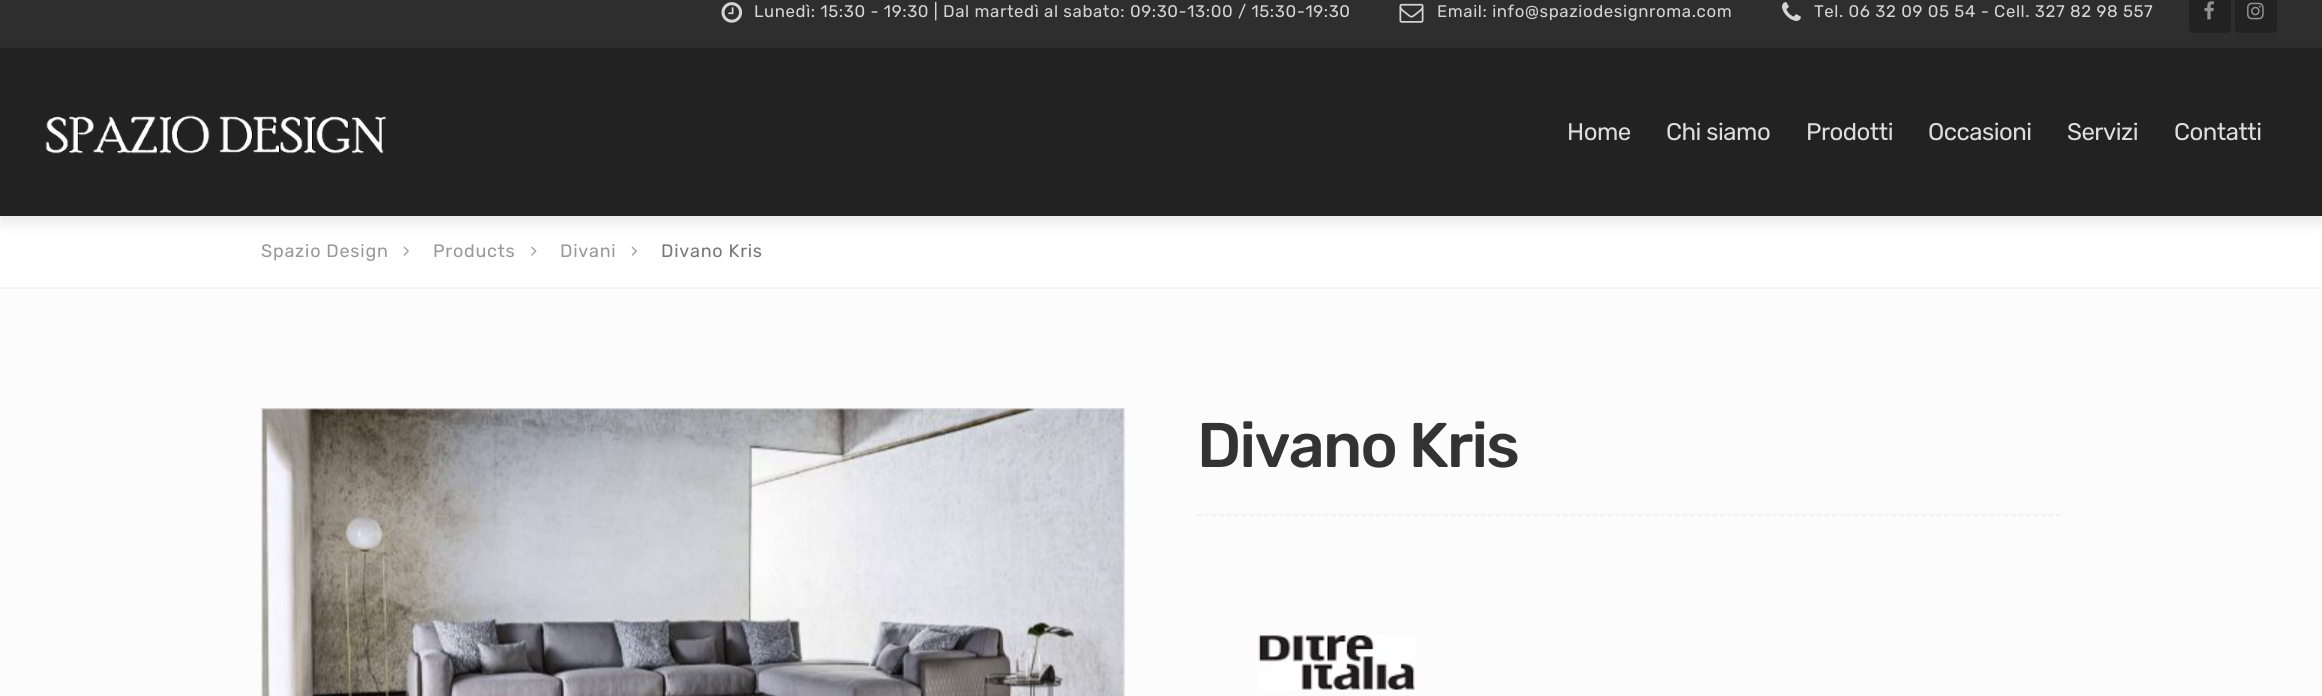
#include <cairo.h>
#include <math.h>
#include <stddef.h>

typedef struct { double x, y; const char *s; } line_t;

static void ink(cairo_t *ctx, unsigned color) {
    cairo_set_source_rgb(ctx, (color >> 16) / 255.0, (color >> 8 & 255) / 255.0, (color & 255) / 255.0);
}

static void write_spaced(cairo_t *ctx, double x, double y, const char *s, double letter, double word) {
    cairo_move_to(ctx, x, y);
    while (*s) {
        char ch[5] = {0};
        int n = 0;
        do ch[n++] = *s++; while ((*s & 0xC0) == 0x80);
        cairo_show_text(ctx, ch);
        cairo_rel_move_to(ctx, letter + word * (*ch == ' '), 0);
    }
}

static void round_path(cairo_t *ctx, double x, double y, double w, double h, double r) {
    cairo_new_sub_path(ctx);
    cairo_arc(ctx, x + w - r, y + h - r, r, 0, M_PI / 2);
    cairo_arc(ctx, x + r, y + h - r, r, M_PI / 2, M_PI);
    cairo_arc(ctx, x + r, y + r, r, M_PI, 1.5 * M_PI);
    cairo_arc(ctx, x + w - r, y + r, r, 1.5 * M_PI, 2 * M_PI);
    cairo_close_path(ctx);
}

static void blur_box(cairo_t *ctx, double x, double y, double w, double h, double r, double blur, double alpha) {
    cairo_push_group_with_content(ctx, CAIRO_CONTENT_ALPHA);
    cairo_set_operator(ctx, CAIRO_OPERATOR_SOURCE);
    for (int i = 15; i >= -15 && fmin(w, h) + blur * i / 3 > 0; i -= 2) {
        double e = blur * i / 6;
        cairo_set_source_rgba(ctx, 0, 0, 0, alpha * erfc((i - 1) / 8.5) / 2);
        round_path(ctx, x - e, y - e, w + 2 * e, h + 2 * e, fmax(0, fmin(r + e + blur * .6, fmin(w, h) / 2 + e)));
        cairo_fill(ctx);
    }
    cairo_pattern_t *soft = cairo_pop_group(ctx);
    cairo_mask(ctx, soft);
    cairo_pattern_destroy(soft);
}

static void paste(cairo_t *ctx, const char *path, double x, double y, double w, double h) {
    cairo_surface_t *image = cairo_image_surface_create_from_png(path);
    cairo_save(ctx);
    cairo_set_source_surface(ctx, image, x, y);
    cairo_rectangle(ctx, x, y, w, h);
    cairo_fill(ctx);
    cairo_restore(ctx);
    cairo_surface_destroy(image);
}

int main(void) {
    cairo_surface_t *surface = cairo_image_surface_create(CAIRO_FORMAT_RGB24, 2322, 696);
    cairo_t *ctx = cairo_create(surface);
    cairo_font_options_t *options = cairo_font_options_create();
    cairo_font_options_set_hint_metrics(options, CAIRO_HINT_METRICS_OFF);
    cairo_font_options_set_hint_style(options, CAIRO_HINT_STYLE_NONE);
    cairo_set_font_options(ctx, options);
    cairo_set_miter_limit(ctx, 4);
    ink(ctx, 0xFFFFFF);
    cairo_paint(ctx);
    ink(ctx, 0xFCFCFC);
    cairo_rectangle(ctx, 0, 289, 2322, 407);
    cairo_fill(ctx);
    ink(ctx, 0x2F2E2E);
    cairo_rectangle(ctx, 0, 0, 2322, 48);
    cairo_fill(ctx);
    paste(ctx, "media/1.png", 721, 2, 22, 21);
    cairo_select_font_face(ctx, "Rubik", CAIRO_FONT_SLANT_NORMAL, CAIRO_FONT_WEIGHT_NORMAL);
    cairo_set_font_size(ctx, 16.8);
    ink(ctx, 0xD5D5D5);
    write_spaced(ctx, 754, 17, "Lunedì: 15:30 - 19:30 | Dal martedì al sabato: 09:30-13:00 / 15:30-19:30", 0.6, 0);
    paste(ctx, "media/2.png", 1399, 3, 25, 20);
    write_spaced(ctx, 1437, 17, "Email: info@spaziodesignroma.com", 0.6, 0);
    paste(ctx, "media/3.png", 1782, 2, 19, 19);
    write_spaced(ctx, 1814, 17, "Tel. 06 32 09 05 54 - Cell. 327 82 98 557", 0.6, 0);
    ink(ctx, 0x222222);
    round_path(ctx, 2189, -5, 42, 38, 5);
    cairo_fill(ctx);
    paste(ctx, "media/4.png", 2204, 1, 10, 19);
    round_path(ctx, 2235, -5, 42, 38, 5);
    cairo_fill(ctx);
    paste(ctx, "media/5.png", 2247, 2, 17, 18);
    ink(ctx, 0x000000);
    blur_box(ctx, 0, 54, 2322, 168, 0, 7.5, 0.1);
    ink(ctx, 0x222222);
    cairo_rectangle(ctx, 0, 48, 2322, 168);
    cairo_fill(ctx);
    paste(ctx, "media/6.png", 45, 115, 342, 39);
    cairo_set_font_size(ctx, 24);
    ink(ctx, 0xDDDDDD);
    {
        static const line_t items[] = {
            {1567, 140, "Home"},
            {1666, 140, "Chi siamo"},
            {1806, 140, "Prodotti"},
            {1928, 140, "Occasioni"},
            {2067, 140, "Servizi"},
            {2174, 140, "Contatti"},
        };
        for (size_t i = 0; i < sizeof items / sizeof *items; i++) {
            write_spaced(ctx, items[i].x, items[i].y, items[i].s, -0.5, 0);
        }
    }
    ink(ctx, 0xF5F5F5);
    cairo_rectangle(ctx, 0, 287, 2322, 1);
    cairo_fill(ctx);
    ink(ctx, 0xF3F3F3);
    cairo_rectangle(ctx, 0, 288, 2322, 1);
    cairo_fill(ctx);
    cairo_set_font_size(ctx, 18);
    ink(ctx, 0x999999);
    write_spaced(ctx, 261, 257, "Spazio Design", 0.75, 0);
    paste(ctx, "media/7.png", 403, 246, 6, 10);
    write_spaced(ctx, 433, 257, "Products", 0.75, 0);
    paste(ctx, "media/8.png", 531, 246, 6, 10);
    write_spaced(ctx, 560, 257, "Divani", 0.75, 0);
    paste(ctx, "media/7.png", 631, 246, 6, 10);
    ink(ctx, 0x777777);
    write_spaced(ctx, 661, 257, "Divano Kris", 0.75, 0);
    cairo_rectangle(ctx, 262, 409, 862, 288);
    ink(ctx, 0xE5E5E5);
    cairo_stroke(ctx);
    paste(ctx, "media/9.png", 262, 408, 862, 288);
    cairo_new_path(ctx);
    cairo_move_to(ctx, 1197, 515);
    cairo_line_to(ctx, 2061, 515);
    ink(ctx, 0xEEEEEE);
    cairo_set_line_width(ctx, 1.5);
    cairo_set_dash(ctx, (double[]){4.5, 2.97}, 2, 0);
    cairo_stroke(ctx);
    cairo_select_font_face(ctx, "Rubik Medium", CAIRO_FONT_SLANT_NORMAL, CAIRO_FONT_WEIGHT_NORMAL);
    cairo_set_font_size(ctx, 63);
    ink(ctx, 0x333333);
    write_spaced(ctx, 1197, 467, "Divano Kris", -1.75, 0);
    paste(ctx, "media/10.png", 1258, 635, 157, 55);
    cairo_surface_write_to_png(surface, "image.png");
    cairo_font_options_destroy(options);
    cairo_destroy(ctx);
    cairo_surface_destroy(surface);
    return 0;
}
